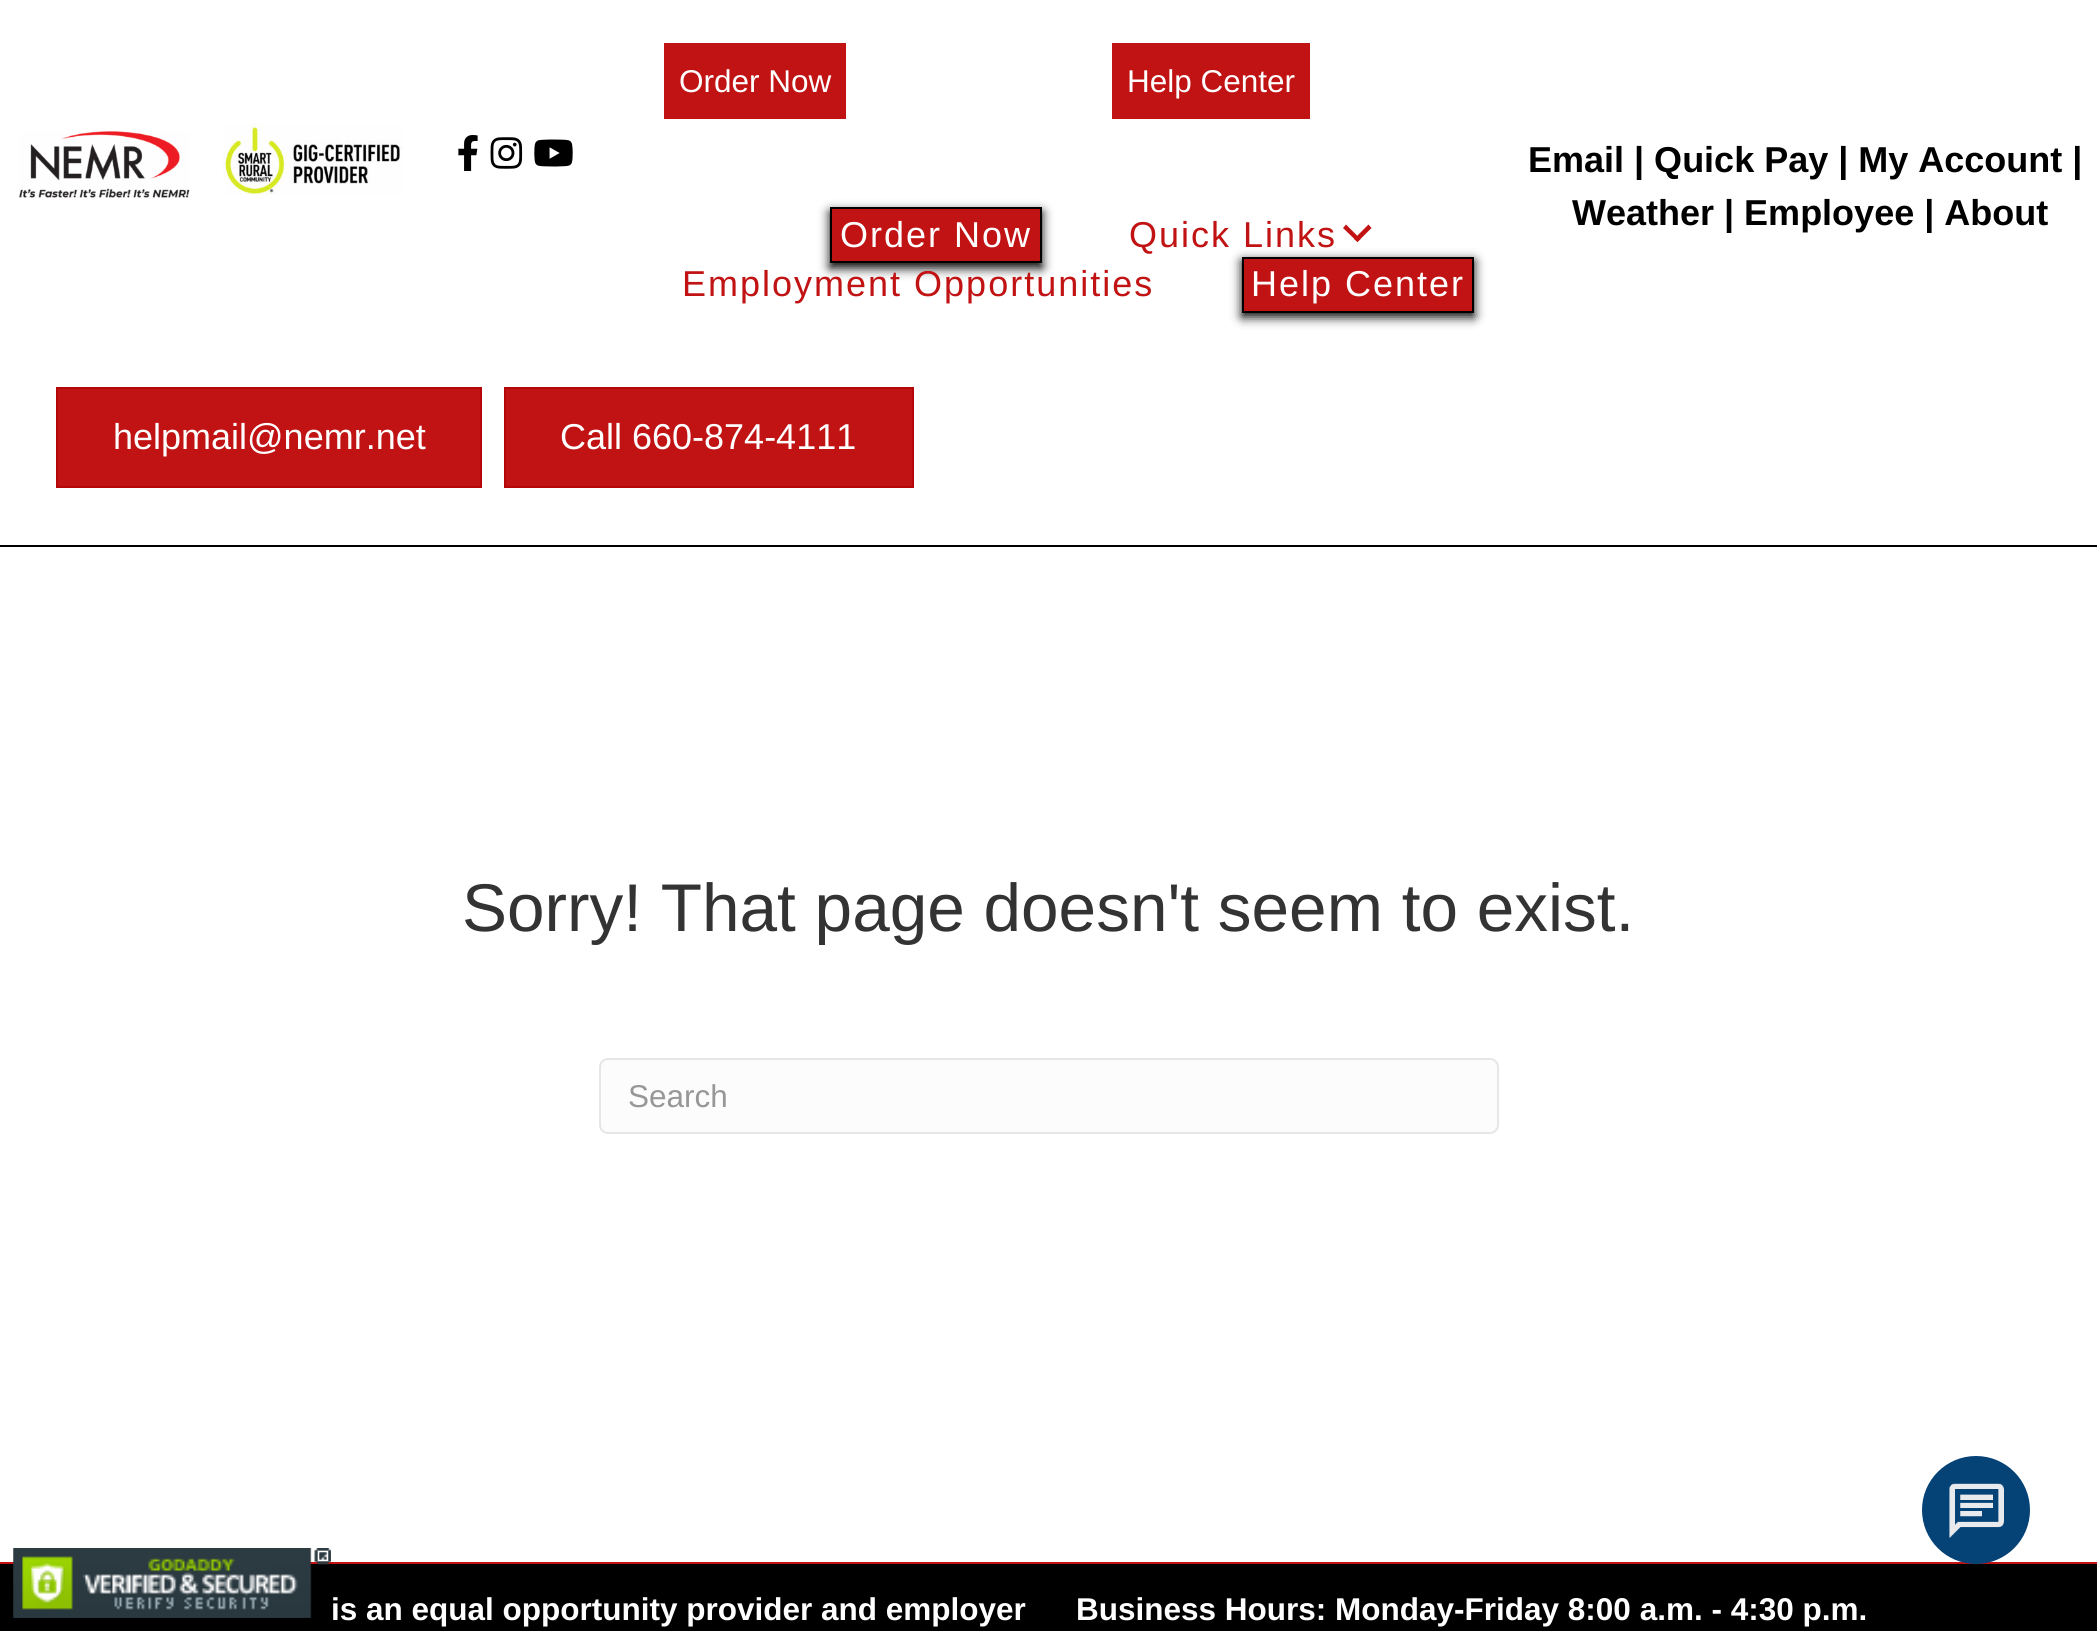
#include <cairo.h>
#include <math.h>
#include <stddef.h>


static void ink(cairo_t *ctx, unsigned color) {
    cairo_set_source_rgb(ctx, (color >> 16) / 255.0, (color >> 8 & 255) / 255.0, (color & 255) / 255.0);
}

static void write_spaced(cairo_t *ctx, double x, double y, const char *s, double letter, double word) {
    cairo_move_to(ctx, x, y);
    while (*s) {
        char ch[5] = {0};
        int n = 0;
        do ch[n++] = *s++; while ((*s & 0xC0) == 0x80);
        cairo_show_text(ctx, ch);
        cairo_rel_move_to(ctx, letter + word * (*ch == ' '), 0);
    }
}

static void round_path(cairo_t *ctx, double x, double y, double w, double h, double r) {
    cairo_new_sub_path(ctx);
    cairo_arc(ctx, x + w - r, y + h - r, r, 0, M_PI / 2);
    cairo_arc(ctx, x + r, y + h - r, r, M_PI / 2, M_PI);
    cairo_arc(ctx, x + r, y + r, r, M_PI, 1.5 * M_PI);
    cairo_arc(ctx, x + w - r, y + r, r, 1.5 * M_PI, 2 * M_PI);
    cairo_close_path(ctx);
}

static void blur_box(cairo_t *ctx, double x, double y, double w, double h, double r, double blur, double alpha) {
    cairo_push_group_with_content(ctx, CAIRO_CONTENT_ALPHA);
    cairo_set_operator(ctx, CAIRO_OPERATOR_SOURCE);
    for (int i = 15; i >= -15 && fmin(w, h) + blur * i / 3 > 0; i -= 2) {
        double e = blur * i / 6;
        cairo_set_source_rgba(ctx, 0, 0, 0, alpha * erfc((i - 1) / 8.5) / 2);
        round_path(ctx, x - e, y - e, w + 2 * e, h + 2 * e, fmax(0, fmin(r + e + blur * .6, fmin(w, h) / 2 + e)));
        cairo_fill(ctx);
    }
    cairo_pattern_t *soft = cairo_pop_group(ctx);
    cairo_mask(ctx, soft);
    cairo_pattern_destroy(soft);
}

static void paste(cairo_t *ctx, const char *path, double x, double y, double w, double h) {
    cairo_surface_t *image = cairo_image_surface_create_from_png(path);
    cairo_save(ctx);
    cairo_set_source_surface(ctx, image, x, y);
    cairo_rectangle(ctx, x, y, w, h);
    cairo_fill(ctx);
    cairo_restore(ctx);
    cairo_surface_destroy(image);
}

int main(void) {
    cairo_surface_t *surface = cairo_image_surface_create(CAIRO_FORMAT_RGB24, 2097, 1631);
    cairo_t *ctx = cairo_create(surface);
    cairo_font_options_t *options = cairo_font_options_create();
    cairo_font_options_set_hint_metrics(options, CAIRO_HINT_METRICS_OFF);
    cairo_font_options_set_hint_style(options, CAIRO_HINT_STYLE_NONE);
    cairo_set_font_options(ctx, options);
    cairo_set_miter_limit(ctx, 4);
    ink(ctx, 0xFFFFFF);
    cairo_paint(ctx);
    ink(ctx, 0x000000);
    cairo_rectangle(ctx, 0, 545, 2097, 2);
    cairo_fill(ctx);
    paste(ctx, "media/1.png", 19, 131, 171, 67);
    paste(ctx, "media/2.png", 223, 124, 180, 71);
    paste(ctx, "media/3.png", 458, 135, 20, 36);
    paste(ctx, "media/4.png", 490, 137, 33, 32);
    paste(ctx, "media/5.png", 534, 139, 39, 28);
    ink(ctx, 0xC11313);
    cairo_rectangle(ctx, 664, 43, 182, 76);
    cairo_fill(ctx);
    cairo_select_font_face(ctx, "Liberation Sans", CAIRO_FONT_SLANT_NORMAL, CAIRO_FONT_WEIGHT_NORMAL);
    cairo_set_font_size(ctx, 31.5);
    ink(ctx, 0xFFFFFF);
    cairo_move_to(ctx, 679, 92);
    cairo_show_text(ctx, "Order Now");
    ink(ctx, 0xC11313);
    cairo_rectangle(ctx, 1112, 43, 198, 76);
    cairo_fill(ctx);
    ink(ctx, 0xFFFFFF);
    cairo_move_to(ctx, 1127, 92);
    cairo_show_text(ctx, "Help Center");
    ink(ctx, 0x000000);
    blur_box(ctx, 830, 212, 212, 56, 0, 5.5, 1);
    ink(ctx, 0xC11313);
    cairo_rectangle(ctx, 831, 208, 210, 54);
    cairo_fill_preserve(ctx);
    ink(ctx, 0x000000);
    cairo_stroke(ctx);
    cairo_set_font_size(ctx, 36);
    ink(ctx, 0xFFFFFF);
    write_spaced(ctx, 840, 247, "Order Now", 2, 0);
    ink(ctx, 0xC11313);
    write_spaced(ctx, 1129, 247, "Quick Links", 2, 0);
    cairo_new_path(ctx);
    cairo_move_to(ctx, 1368.5, 224.5);
    cairo_line_to(ctx, 1371.5, 228);
    cairo_line_to(ctx, 1357.5, 242);
    cairo_line_to(ctx, 1354, 239);
    cairo_close_path(ctx);
    cairo_fill(ctx);
    cairo_new_path(ctx);
    cairo_move_to(ctx, 1346, 224.5);
    cairo_line_to(ctx, 1360.5, 239);
    cairo_line_to(ctx, 1357.5, 242);
    cairo_line_to(ctx, 1343, 228);
    cairo_close_path(ctx);
    cairo_fill(ctx);
    write_spaced(ctx, 682, 296, "Employment Opportunities", 2, 0);
    ink(ctx, 0x000000);
    blur_box(ctx, 1242, 261, 232, 56, 0, 5.5, 1);
    ink(ctx, 0xC11313);
    cairo_rectangle(ctx, 1243, 258, 230, 54);
    cairo_fill_preserve(ctx);
    ink(ctx, 0x000000);
    cairo_stroke(ctx);
    ink(ctx, 0xFFFFFF);
    write_spaced(ctx, 1251, 296, "Help Center", 2, 0);
    cairo_select_font_face(ctx, "Liberation Sans", CAIRO_FONT_SLANT_NORMAL, CAIRO_FONT_WEIGHT_BOLD);
    ink(ctx, 0x000000);
    cairo_move_to(ctx, 1528, 172);
    cairo_show_text(ctx, "Email | Quick Pay | My Account |");
    cairo_move_to(ctx, 1572, 225);
    cairo_show_text(ctx, "Weather | Employee | About");
    ink(ctx, 0xC11313);
    cairo_rectangle(ctx, 57, 388, 424, 99);
    cairo_fill_preserve(ctx);
    ink(ctx, 0xB50707);
    cairo_stroke(ctx);
    cairo_select_font_face(ctx, "Liberation Sans", CAIRO_FONT_SLANT_NORMAL, CAIRO_FONT_WEIGHT_NORMAL);
    ink(ctx, 0xFFFFFF);
    cairo_move_to(ctx, 113, 449);
    cairo_show_text(ctx, "helpmail@nemr.net");
    ink(ctx, 0xC11313);
    cairo_rectangle(ctx, 505, 388, 408, 99);
    cairo_fill_preserve(ctx);
    ink(ctx, 0xB50707);
    cairo_stroke(ctx);
    ink(ctx, 0xFFFFFF);
    cairo_move_to(ctx, 560, 449);
    cairo_show_text(ctx, "Call 660-874-4111");
    cairo_set_font_size(ctx, 67.5);
    ink(ctx, 0x333333);
    cairo_move_to(ctx, 462, 931);
    cairo_show_text(ctx, "Sorry! That page doesn't seem to exist.");
    ink(ctx, 0xFCFCFC);
    round_path(ctx, 600, 1059, 898, 74, 8);
    cairo_fill_preserve(ctx);
    ink(ctx, 0xE6E6E6);
    cairo_stroke(ctx);
    cairo_set_font_size(ctx, 31.5);
    ink(ctx, 0x979797);
    cairo_move_to(ctx, 628, 1107);
    cairo_show_text(ctx, "Search");
    ink(ctx, 0x000000);
    cairo_rectangle(ctx, 0, 1564, 2097, 67);
    cairo_fill(ctx);
    ink(ctx, 0xC11313);
    cairo_rectangle(ctx, 0, 1562, 2097, 2);
    cairo_fill(ctx);
    cairo_select_font_face(ctx, "Liberation Sans", CAIRO_FONT_SLANT_NORMAL, CAIRO_FONT_WEIGHT_BOLD);
    ink(ctx, 0xFFFFFF);
    cairo_move_to(ctx, 331, 1620);
    cairo_show_text(ctx, "is an equal opportunity provider and employer");
    cairo_move_to(ctx, 1076, 1620);
    cairo_show_text(ctx, "Business Hours: Monday-Friday 8:00 a.m. - 4:30 p.m.");
    ink(ctx, 0x054276);
    cairo_new_path(ctx);
    cairo_arc(ctx, 1976, 1510, 54, 0, 2 * M_PI);
    cairo_fill(ctx);
    paste(ctx, "media/6.png", 1949, 1483, 55, 55);
    paste(ctx, "media/7.png", 13, 1548, 318, 70);
    paste(ctx, "media/8.png", 13, 1548, 318, 70);
    cairo_surface_write_to_png(surface, "image.png");
    cairo_font_options_destroy(options);
    cairo_destroy(ctx);
    cairo_surface_destroy(surface);
    return 0;
}
